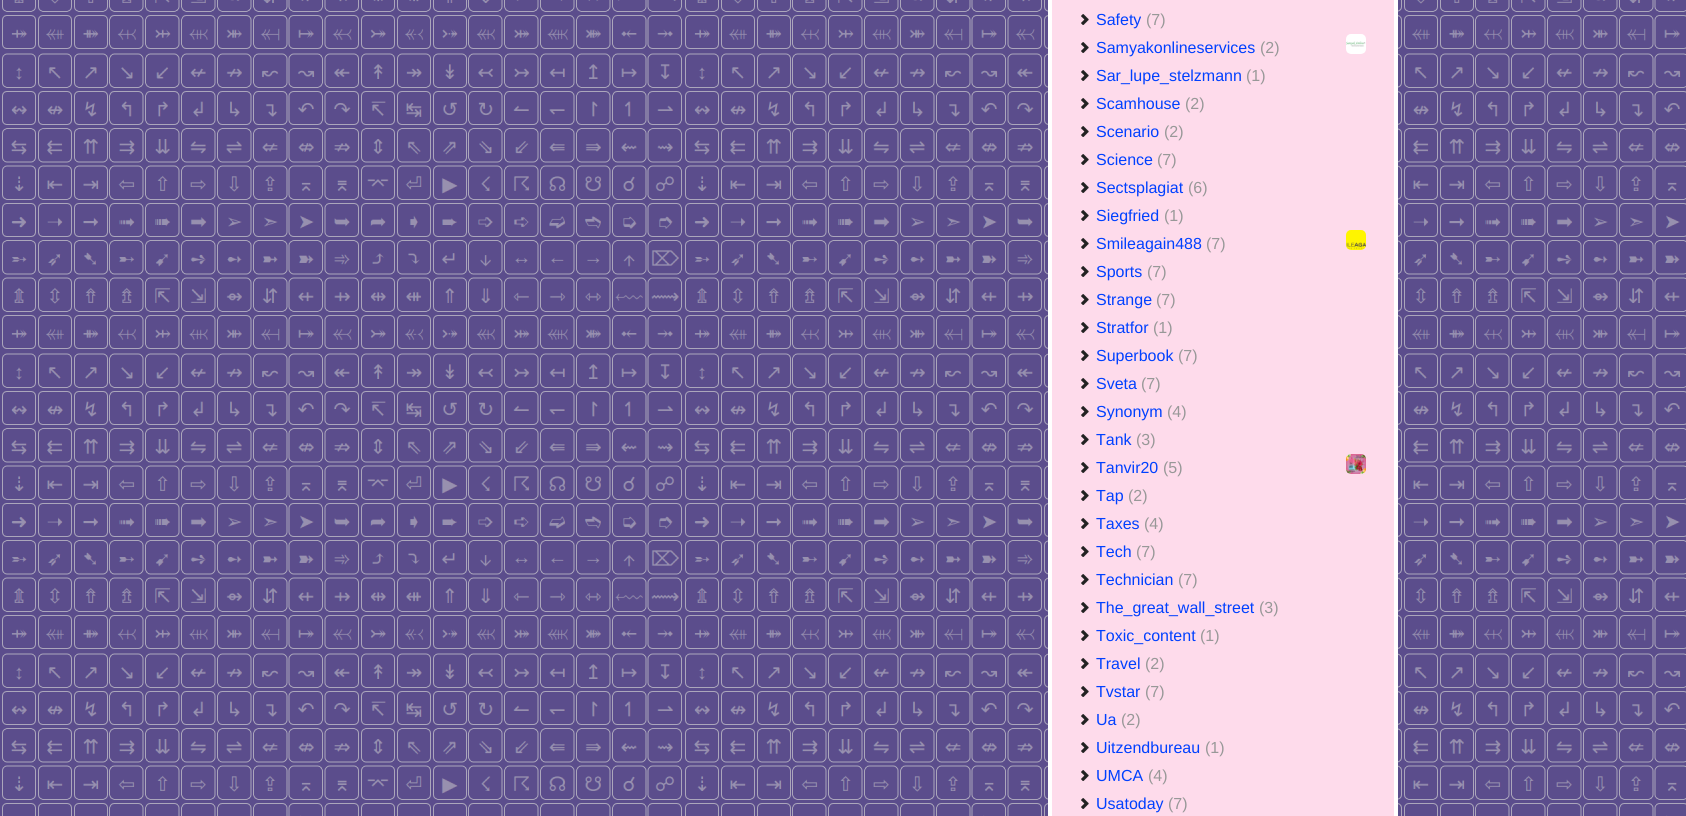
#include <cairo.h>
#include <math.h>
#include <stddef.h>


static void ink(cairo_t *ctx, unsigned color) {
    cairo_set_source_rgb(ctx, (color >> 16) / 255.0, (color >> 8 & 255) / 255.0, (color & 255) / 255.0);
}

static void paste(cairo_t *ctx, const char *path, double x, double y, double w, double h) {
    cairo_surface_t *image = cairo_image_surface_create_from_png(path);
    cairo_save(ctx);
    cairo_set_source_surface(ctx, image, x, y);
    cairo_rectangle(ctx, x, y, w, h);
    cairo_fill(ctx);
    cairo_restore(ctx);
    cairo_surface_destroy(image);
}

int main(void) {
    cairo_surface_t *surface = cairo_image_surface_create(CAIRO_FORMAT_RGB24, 1686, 816);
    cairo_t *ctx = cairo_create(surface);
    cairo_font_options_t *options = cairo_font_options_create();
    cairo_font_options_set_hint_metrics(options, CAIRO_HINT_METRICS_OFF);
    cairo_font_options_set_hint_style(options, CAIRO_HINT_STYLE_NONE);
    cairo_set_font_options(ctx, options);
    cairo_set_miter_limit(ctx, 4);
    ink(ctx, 0xFFFFFF);
    cairo_paint(ctx);
    paste(ctx, "media/1.png", 0, 0, 1686, 816);
    ink(ctx, 0xFEDBEB);
    cairo_rectangle(ctx, 1050, -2, 346, 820);
    cairo_fill_preserve(ctx);
    ink(ctx, 0xFFFFFF);
    cairo_set_line_width(ctx, 4);
    cairo_stroke(ctx);
    paste(ctx, "media/2.png", 1081, 14, 8, 11);
    cairo_select_font_face(ctx, "Liberation Sans", CAIRO_FONT_SLANT_NORMAL, CAIRO_FONT_WEIGHT_NORMAL);
    cairo_set_font_size(ctx, 16);
    ink(ctx, 0x0040FF);
    cairo_move_to(ctx, 1096, 25);
    cairo_show_text(ctx, "Safety");
    ink(ctx, 0x989898);
    cairo_move_to(ctx, 1146, 25);
    cairo_show_text(ctx, "(7)");
    paste(ctx, "media/2.png", 1081, 42, 8, 11);
    ink(ctx, 0x0040FF);
    cairo_move_to(ctx, 1096, 53);
    cairo_show_text(ctx, "Samyakonlineservices");
    ink(ctx, 0x989898);
    cairo_move_to(ctx, 1260, 53);
    cairo_show_text(ctx, "(2)");
    paste(ctx, "media/3.png", 1346, 34, 20, 20);
    paste(ctx, "media/2.png", 1081, 70, 8, 11);
    ink(ctx, 0x0040FF);
    cairo_move_to(ctx, 1096, 81);
    cairo_show_text(ctx, "Sar_lupe_stelzmann");
    ink(ctx, 0x989898);
    cairo_move_to(ctx, 1246, 81);
    cairo_show_text(ctx, "(1)");
    paste(ctx, "media/2.png", 1081, 98, 8, 11);
    ink(ctx, 0x0040FF);
    cairo_move_to(ctx, 1096, 109);
    cairo_show_text(ctx, "Scamhouse");
    ink(ctx, 0x989898);
    cairo_move_to(ctx, 1185, 109);
    cairo_show_text(ctx, "(2)");
    paste(ctx, "media/2.png", 1081, 126, 8, 11);
    ink(ctx, 0x0040FF);
    cairo_move_to(ctx, 1096, 137);
    cairo_show_text(ctx, "Scenario");
    ink(ctx, 0x989898);
    cairo_move_to(ctx, 1164, 137);
    cairo_show_text(ctx, "(2)");
    paste(ctx, "media/2.png", 1081, 154, 8, 11);
    ink(ctx, 0x0040FF);
    cairo_move_to(ctx, 1096, 165);
    cairo_show_text(ctx, "Science");
    ink(ctx, 0x989898);
    cairo_move_to(ctx, 1157, 165);
    cairo_show_text(ctx, "(7)");
    paste(ctx, "media/2.png", 1081, 182, 8, 11);
    ink(ctx, 0x0040FF);
    cairo_move_to(ctx, 1096, 193);
    cairo_show_text(ctx, "Sectsplagiat");
    ink(ctx, 0x989898);
    cairo_move_to(ctx, 1188, 193);
    cairo_show_text(ctx, "(6)");
    paste(ctx, "media/2.png", 1081, 210, 8, 11);
    ink(ctx, 0x0040FF);
    cairo_move_to(ctx, 1096, 221);
    cairo_show_text(ctx, "Siegfried");
    ink(ctx, 0x989898);
    cairo_move_to(ctx, 1164, 221);
    cairo_show_text(ctx, "(1)");
    paste(ctx, "media/2.png", 1081, 238, 8, 11);
    ink(ctx, 0x0040FF);
    cairo_move_to(ctx, 1096, 249);
    cairo_show_text(ctx, "Smileagain488");
    ink(ctx, 0x989898);
    cairo_move_to(ctx, 1206, 249);
    cairo_show_text(ctx, "(7)");
    paste(ctx, "media/4.png", 1346, 230, 20, 20);
    paste(ctx, "media/2.png", 1081, 266, 8, 11);
    ink(ctx, 0x0040FF);
    cairo_move_to(ctx, 1096, 277);
    cairo_show_text(ctx, "Sports");
    ink(ctx, 0x989898);
    cairo_move_to(ctx, 1147, 277);
    cairo_show_text(ctx, "(7)");
    paste(ctx, "media/2.png", 1081, 294, 8, 11);
    ink(ctx, 0x0040FF);
    cairo_move_to(ctx, 1096, 305);
    cairo_show_text(ctx, "Strange");
    ink(ctx, 0x989898);
    cairo_move_to(ctx, 1156, 305);
    cairo_show_text(ctx, "(7)");
    paste(ctx, "media/2.png", 1081, 322, 8, 11);
    ink(ctx, 0x0040FF);
    cairo_move_to(ctx, 1096, 333);
    cairo_show_text(ctx, "Stratfor");
    ink(ctx, 0x989898);
    cairo_move_to(ctx, 1153, 333);
    cairo_show_text(ctx, "(1)");
    paste(ctx, "media/2.png", 1081, 350, 8, 11);
    ink(ctx, 0x0040FF);
    cairo_move_to(ctx, 1096, 361);
    cairo_show_text(ctx, "Superbook");
    ink(ctx, 0x989898);
    cairo_move_to(ctx, 1178, 361);
    cairo_show_text(ctx, "(7)");
    paste(ctx, "media/2.png", 1081, 378, 8, 11);
    ink(ctx, 0x0040FF);
    cairo_move_to(ctx, 1096, 389);
    cairo_show_text(ctx, "Sveta");
    ink(ctx, 0x989898);
    cairo_move_to(ctx, 1141, 389);
    cairo_show_text(ctx, "(7)");
    paste(ctx, "media/2.png", 1081, 406, 8, 11);
    ink(ctx, 0x0040FF);
    cairo_move_to(ctx, 1096, 417);
    cairo_show_text(ctx, "Synonym");
    ink(ctx, 0x989898);
    cairo_move_to(ctx, 1167, 417);
    cairo_show_text(ctx, "(4)");
    paste(ctx, "media/2.png", 1081, 434, 8, 11);
    ink(ctx, 0x0040FF);
    cairo_move_to(ctx, 1096, 445);
    cairo_show_text(ctx, "Tank");
    ink(ctx, 0x989898);
    cairo_move_to(ctx, 1136, 445);
    cairo_show_text(ctx, "(3)");
    paste(ctx, "media/2.png", 1081, 462, 8, 11);
    ink(ctx, 0x0040FF);
    cairo_move_to(ctx, 1096, 473);
    cairo_show_text(ctx, "Tanvir20");
    ink(ctx, 0x989898);
    cairo_move_to(ctx, 1163, 473);
    cairo_show_text(ctx, "(5)");
    paste(ctx, "media/5.png", 1346, 454, 20, 20);
    paste(ctx, "media/2.png", 1081, 490, 8, 11);
    ink(ctx, 0x0040FF);
    cairo_move_to(ctx, 1096, 501);
    cairo_show_text(ctx, "Tap");
    ink(ctx, 0x989898);
    cairo_move_to(ctx, 1128, 501);
    cairo_show_text(ctx, "(2)");
    paste(ctx, "media/2.png", 1081, 518, 8, 11);
    ink(ctx, 0x0040FF);
    cairo_move_to(ctx, 1096, 529);
    cairo_show_text(ctx, "Taxes");
    ink(ctx, 0x989898);
    cairo_move_to(ctx, 1144, 529);
    cairo_show_text(ctx, "(4)");
    paste(ctx, "media/2.png", 1081, 546, 8, 11);
    ink(ctx, 0x0040FF);
    cairo_move_to(ctx, 1096, 557);
    cairo_show_text(ctx, "Tech");
    ink(ctx, 0x989898);
    cairo_move_to(ctx, 1136, 557);
    cairo_show_text(ctx, "(7)");
    paste(ctx, "media/2.png", 1081, 574, 8, 11);
    ink(ctx, 0x0040FF);
    cairo_move_to(ctx, 1096, 585);
    cairo_show_text(ctx, "Technician");
    ink(ctx, 0x989898);
    cairo_move_to(ctx, 1178, 585);
    cairo_show_text(ctx, "(7)");
    paste(ctx, "media/2.png", 1081, 602, 8, 11);
    ink(ctx, 0x0040FF);
    cairo_move_to(ctx, 1096, 613);
    cairo_show_text(ctx, "The_great_wall_street");
    ink(ctx, 0x989898);
    cairo_move_to(ctx, 1259, 613);
    cairo_show_text(ctx, "(3)");
    paste(ctx, "media/2.png", 1081, 630, 8, 11);
    ink(ctx, 0x0040FF);
    cairo_move_to(ctx, 1096, 641);
    cairo_show_text(ctx, "Toxic_content");
    ink(ctx, 0x989898);
    cairo_move_to(ctx, 1200, 641);
    cairo_show_text(ctx, "(1)");
    paste(ctx, "media/2.png", 1081, 658, 8, 11);
    ink(ctx, 0x0040FF);
    cairo_move_to(ctx, 1096, 669);
    cairo_show_text(ctx, "Travel");
    ink(ctx, 0x989898);
    cairo_move_to(ctx, 1145, 669);
    cairo_show_text(ctx, "(2)");
    paste(ctx, "media/2.png", 1081, 686, 8, 11);
    ink(ctx, 0x0040FF);
    cairo_move_to(ctx, 1096, 697);
    cairo_show_text(ctx, "Tvstar");
    ink(ctx, 0x989898);
    cairo_move_to(ctx, 1145, 697);
    cairo_show_text(ctx, "(7)");
    paste(ctx, "media/2.png", 1081, 714, 8, 11);
    ink(ctx, 0x0040FF);
    cairo_move_to(ctx, 1096, 725);
    cairo_show_text(ctx, "Ua");
    ink(ctx, 0x989898);
    cairo_move_to(ctx, 1121, 725);
    cairo_show_text(ctx, "(2)");
    paste(ctx, "media/2.png", 1081, 742, 8, 11);
    ink(ctx, 0x0040FF);
    cairo_move_to(ctx, 1096, 753);
    cairo_show_text(ctx, "Uitzendbureau");
    ink(ctx, 0x989898);
    cairo_move_to(ctx, 1205, 753);
    cairo_show_text(ctx, "(1)");
    paste(ctx, "media/2.png", 1081, 770, 8, 11);
    ink(ctx, 0x0040FF);
    cairo_move_to(ctx, 1096, 781);
    cairo_show_text(ctx, "UMCA");
    ink(ctx, 0x989898);
    cairo_move_to(ctx, 1148, 781);
    cairo_show_text(ctx, "(4)");
    paste(ctx, "media/2.png", 1081, 798, 8, 11);
    ink(ctx, 0x0040FF);
    cairo_move_to(ctx, 1096, 809);
    cairo_show_text(ctx, "Usatoday");
    ink(ctx, 0x989898);
    cairo_move_to(ctx, 1168, 809);
    cairo_show_text(ctx, "(7)");
    cairo_surface_write_to_png(surface, "image.png");
    cairo_font_options_destroy(options);
    cairo_destroy(ctx);
    cairo_surface_destroy(surface);
    return 0;
}
